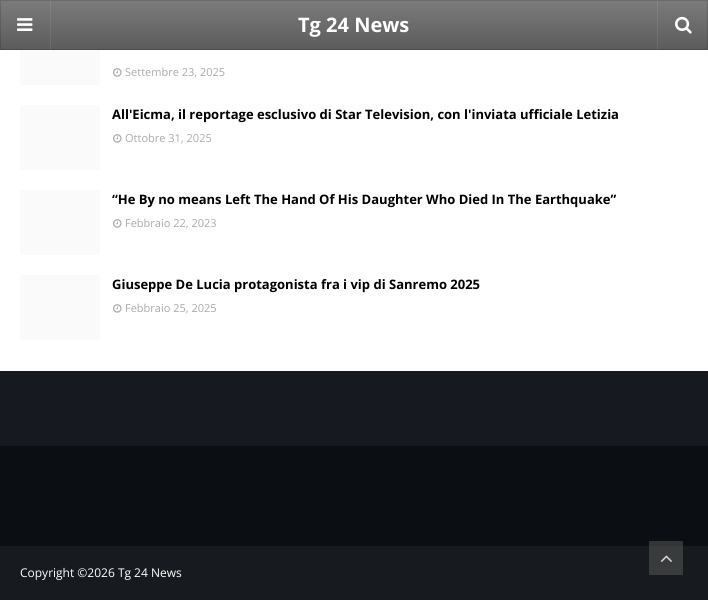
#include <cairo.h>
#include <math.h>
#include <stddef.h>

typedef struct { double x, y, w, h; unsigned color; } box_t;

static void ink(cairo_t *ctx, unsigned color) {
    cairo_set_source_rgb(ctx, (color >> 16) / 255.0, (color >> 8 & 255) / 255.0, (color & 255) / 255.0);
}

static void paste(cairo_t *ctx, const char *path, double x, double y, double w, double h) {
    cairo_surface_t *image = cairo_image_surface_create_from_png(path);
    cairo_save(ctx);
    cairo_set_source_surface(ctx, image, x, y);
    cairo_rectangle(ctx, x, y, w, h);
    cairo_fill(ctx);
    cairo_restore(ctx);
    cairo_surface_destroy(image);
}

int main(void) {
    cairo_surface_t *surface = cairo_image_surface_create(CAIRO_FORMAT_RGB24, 708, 600);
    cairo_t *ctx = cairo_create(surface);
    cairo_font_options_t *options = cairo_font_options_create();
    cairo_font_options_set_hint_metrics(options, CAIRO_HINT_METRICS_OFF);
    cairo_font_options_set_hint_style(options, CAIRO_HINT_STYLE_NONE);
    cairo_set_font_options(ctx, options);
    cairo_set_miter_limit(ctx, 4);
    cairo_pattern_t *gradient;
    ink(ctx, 0xFFFFFF);
    cairo_paint(ctx);
    gradient = cairo_pattern_create_linear(354, 0, 354, 50);
    cairo_pattern_add_color_stop_rgba(gradient, 0, 0.486, 0.486, 0.486, 1);
    cairo_pattern_add_color_stop_rgba(gradient, 1, 0.357, 0.357, 0.357, 1);
    cairo_set_source(ctx, gradient);
    cairo_pattern_destroy(gradient);
    cairo_rectangle(ctx, 0, 0, 708, 50);
    cairo_fill(ctx);
    cairo_rectangle(ctx, 0.5, 0.5, 707, 49);
    cairo_set_source_rgba(ctx, 0, 0, 0, 0.15);
    cairo_set_line_width(ctx, 1);
    cairo_stroke(ctx);
    cairo_set_source_rgba(ctx, 1, 1, 1, 0.08);
    cairo_rectangle(ctx, 50, 0, 1, 50);
    cairo_fill(ctx);
    paste(ctx, "media/1.png", 17, 18, 16, 13);
    cairo_select_font_face(ctx, "Open Sans", CAIRO_FONT_SLANT_NORMAL, CAIRO_FONT_WEIGHT_BOLD);
    cairo_set_font_size(ctx, 20);
    ink(ctx, 0xFFFFFF);
    cairo_move_to(ctx, 298, 32);
    cairo_show_text(ctx, "Tg 24 News");
    cairo_set_source_rgba(ctx, 1, 1, 1, 0.08);
    cairo_rectangle(ctx, 657, 0, 1, 50);
    cairo_fill(ctx);
    paste(ctx, "media/2.png", 675, 16, 17, 18);
    ink(ctx, 0xFAFAFA);
    cairo_rectangle(ctx, 20, 50, 80, 35);
    cairo_fill(ctx);
    paste(ctx, "media/3.png", 113, 68, 9, 9);
    cairo_select_font_face(ctx, "Open Sans", CAIRO_FONT_SLANT_NORMAL, CAIRO_FONT_WEIGHT_NORMAL);
    cairo_set_font_size(ctx, 11);
    ink(ctx, 0xAAAAAA);
    cairo_move_to(ctx, 125, 76);
    cairo_show_text(ctx, "Settembre 23, 2025");
    ink(ctx, 0xFAFAFA);
    cairo_rectangle(ctx, 20, 105, 80, 65);
    cairo_fill(ctx);
    cairo_select_font_face(ctx, "Open Sans", CAIRO_FONT_SLANT_NORMAL, CAIRO_FONT_WEIGHT_BOLD);
    cairo_set_font_size(ctx, 13);
    ink(ctx, 0x000000);
    cairo_move_to(ctx, 112, 119);
    cairo_show_text(ctx, "All'Eicma, il reportage esclusivo di Star Television, con l'inviata ufficiale Letizia");
    paste(ctx, "media/3.png", 113, 134, 9, 9);
    cairo_select_font_face(ctx, "Open Sans", CAIRO_FONT_SLANT_NORMAL, CAIRO_FONT_WEIGHT_NORMAL);
    cairo_set_font_size(ctx, 11);
    ink(ctx, 0xAAAAAA);
    cairo_move_to(ctx, 125, 142);
    cairo_show_text(ctx, "Ottobre 31, 2025");
    ink(ctx, 0xFAFAFA);
    cairo_rectangle(ctx, 20, 190, 80, 65);
    cairo_fill(ctx);
    cairo_select_font_face(ctx, "Open Sans", CAIRO_FONT_SLANT_NORMAL, CAIRO_FONT_WEIGHT_BOLD);
    cairo_set_font_size(ctx, 13);
    ink(ctx, 0x000000);
    cairo_move_to(ctx, 112, 204);
    cairo_show_text(ctx, "“He By no means Left The Hand Of His Daughter Who Died In The Earthquake”");
    paste(ctx, "media/3.png", 113, 219, 9, 9);
    cairo_select_font_face(ctx, "Open Sans", CAIRO_FONT_SLANT_NORMAL, CAIRO_FONT_WEIGHT_NORMAL);
    cairo_set_font_size(ctx, 11);
    ink(ctx, 0xAAAAAA);
    cairo_move_to(ctx, 125, 227);
    cairo_show_text(ctx, "Febbraio 22, 2023");
    ink(ctx, 0xFAFAFA);
    cairo_rectangle(ctx, 20, 275, 80, 65);
    cairo_fill(ctx);
    cairo_select_font_face(ctx, "Open Sans", CAIRO_FONT_SLANT_NORMAL, CAIRO_FONT_WEIGHT_BOLD);
    cairo_set_font_size(ctx, 13);
    ink(ctx, 0x000000);
    cairo_move_to(ctx, 112, 289);
    cairo_show_text(ctx, "Giuseppe De Lucia protagonista fra i vip di Sanremo 2025");
    paste(ctx, "media/3.png", 113, 304, 9, 9);
    cairo_select_font_face(ctx, "Open Sans", CAIRO_FONT_SLANT_NORMAL, CAIRO_FONT_WEIGHT_NORMAL);
    cairo_set_font_size(ctx, 11);
    ink(ctx, 0xAAAAAA);
    cairo_move_to(ctx, 125, 312);
    cairo_show_text(ctx, "Febbraio 25, 2025");
    {
        static const box_t items[] = {
            {0, 446, 708, 100, 0x0B0E13},
            {649, 541, 34, 5, 0x333537},
            {0, 371, 708, 75, 0x171921},
            {0, 546, 708, 54, 0x171A1F},
            {649, 546, 34, 29, 0x393B3D},
        };
        for (size_t i = 0; i < sizeof items / sizeof *items; i++) {
            ink(ctx, items[i].color);
            cairo_rectangle(ctx, items[i].x, items[i].y, items[i].w, items[i].h);
            cairo_fill(ctx);
        }
    }
    cairo_set_font_size(ctx, 12);
    ink(ctx, 0xFFFFFF);
    cairo_move_to(ctx, 20, 577);
    cairo_show_text(ctx, "Copyright ©2026 Tg 24 News");
    paste(ctx, "media/4.png", 660, 555, 12, 7);
    cairo_surface_write_to_png(surface, "image.png");
    cairo_font_options_destroy(options);
    cairo_destroy(ctx);
    cairo_surface_destroy(surface);
    return 0;
}
